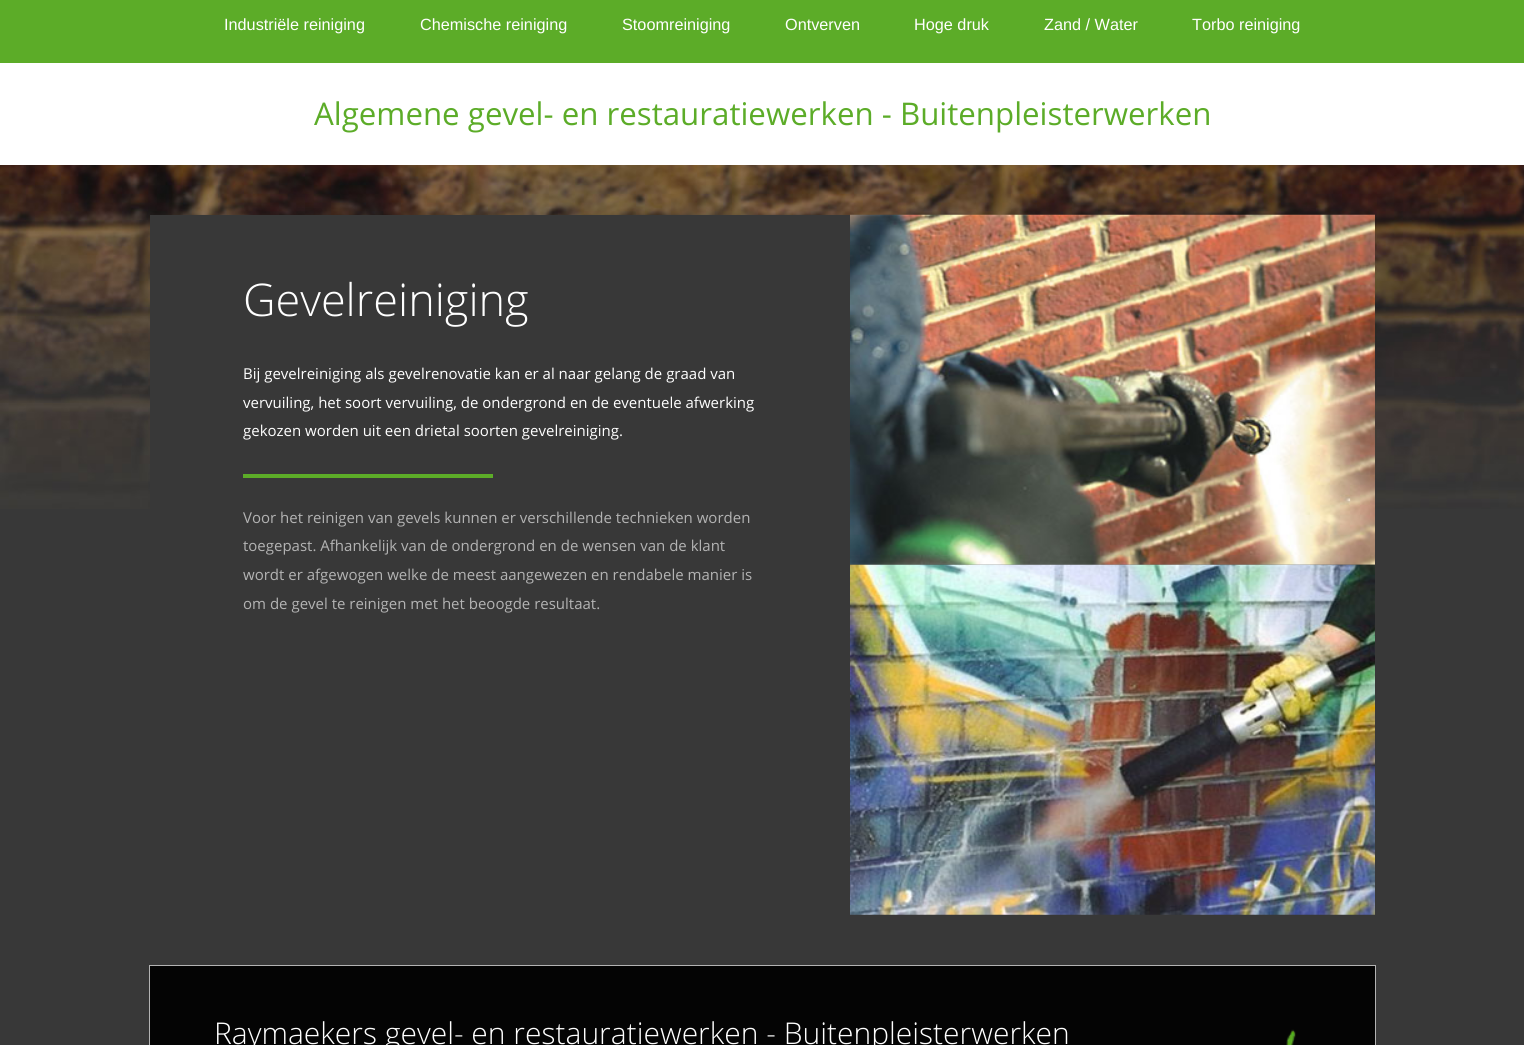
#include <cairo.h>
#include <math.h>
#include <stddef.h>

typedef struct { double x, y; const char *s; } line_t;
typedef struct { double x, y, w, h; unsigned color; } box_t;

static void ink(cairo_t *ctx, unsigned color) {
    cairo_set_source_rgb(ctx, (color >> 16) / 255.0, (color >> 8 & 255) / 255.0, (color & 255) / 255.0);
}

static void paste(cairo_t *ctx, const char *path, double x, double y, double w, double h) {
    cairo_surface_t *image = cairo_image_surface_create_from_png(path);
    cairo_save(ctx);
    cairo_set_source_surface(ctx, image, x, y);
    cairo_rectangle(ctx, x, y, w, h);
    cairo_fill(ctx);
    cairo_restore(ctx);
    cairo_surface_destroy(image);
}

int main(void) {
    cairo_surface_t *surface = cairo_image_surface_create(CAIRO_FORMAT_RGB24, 1524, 1045);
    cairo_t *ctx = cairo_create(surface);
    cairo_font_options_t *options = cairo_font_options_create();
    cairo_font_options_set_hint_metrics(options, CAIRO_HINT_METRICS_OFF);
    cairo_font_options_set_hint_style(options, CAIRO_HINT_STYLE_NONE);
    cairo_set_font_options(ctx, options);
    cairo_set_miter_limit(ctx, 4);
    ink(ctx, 0x383838);
    cairo_paint(ctx);
    ink(ctx, 0x5CAC28);
    cairo_rectangle(ctx, 0, 0, 1524, 63);
    cairo_fill(ctx);
    cairo_select_font_face(ctx, "Liberation Sans", CAIRO_FONT_SLANT_NORMAL, CAIRO_FONT_WEIGHT_NORMAL);
    cairo_set_font_size(ctx, 16.25);
    ink(ctx, 0xFFFFFF);
    {
        static const line_t items[] = {
            {224, 30, "Industriële reiniging"},
            {420, 30, "Chemische reiniging"},
            {622, 30, "Stoomreiniging"},
            {785, 30, "Ontverven"},
            {914, 30, "Hoge druk"},
            {1044, 30, "Zand / Water"},
            {1192, 30, "Torbo reiniging"},
        };
        for (size_t i = 0; i < sizeof items / sizeof *items; i++) {
            cairo_move_to(ctx, items[i].x, items[i].y);
            cairo_show_text(ctx, items[i].s);
        }
    }
    cairo_rectangle(ctx, 0, 63, 1524, 102);
    cairo_fill(ctx);
    cairo_select_font_face(ctx, "Open Sans", CAIRO_FONT_SLANT_NORMAL, CAIRO_FONT_WEIGHT_NORMAL);
    cairo_set_font_size(ctx, 31.25);
    ink(ctx, 0x5CAC28);
    cairo_move_to(ctx, 314, 125);
    cairo_show_text(ctx, "Algemene gevel- en restauratiewerken - Buitenpleisterwerken");
    paste(ctx, "media/1.png", 0, 165, 1524, 344);
    ink(ctx, 0x383838);
    cairo_rectangle(ctx, 150, 215, 1225, 294);
    cairo_fill(ctx);
    cairo_select_font_face(ctx, "Open Sans Light", CAIRO_FONT_SLANT_NORMAL, CAIRO_FONT_WEIGHT_NORMAL);
    cairo_set_font_size(ctx, 45);
    ink(ctx, 0xFFFFFF);
    cairo_move_to(ctx, 243, 316);
    cairo_show_text(ctx, "Gevelreiniging");
    cairo_select_font_face(ctx, "Open Sans", CAIRO_FONT_SLANT_NORMAL, CAIRO_FONT_WEIGHT_NORMAL);
    cairo_set_font_size(ctx, 15);
    {
        static const line_t items[] = {
            {243, 379, "Bij gevelreiniging als gevelrenovatie kan er al naar gelang de graad van"},
            {243, 408, "vervuiling, het soort vervuiling, de ondergrond en de eventuele afwerking"},
            {243, 436, "gekozen worden uit een drietal soorten gevelreiniging."},
        };
        for (size_t i = 0; i < sizeof items / sizeof *items; i++) {
            cairo_move_to(ctx, items[i].x, items[i].y);
            cairo_show_text(ctx, items[i].s);
        }
    }
    ink(ctx, 0x5CAC28);
    cairo_rectangle(ctx, 243, 474, 250, 4);
    cairo_fill(ctx);
    ink(ctx, 0xB3B3B3);
    {
        static const line_t items[] = {
            {243, 523, "Voor het reinigen van gevels kunnen er verschillende technieken worden"},
            {243, 551, "toegepast. Afhankelijk van de ondergrond en de wensen van de klant"},
            {243, 580, "wordt er afgewogen welke de meest aangewezen en rendabele manier is"},
            {243, 609, "om de gevel te reinigen met het beoogde resultaat."},
        };
        for (size_t i = 0; i < sizeof items / sizeof *items; i++) {
            cairo_move_to(ctx, items[i].x, items[i].y);
            cairo_show_text(ctx, items[i].s);
        }
    }
    paste(ctx, "media/2.png", 850, 214, 525, 351);
    paste(ctx, "media/3.png", 850, 564, 525, 351);
    ink(ctx, 0x040404);
    cairo_rectangle(ctx, 150, 966, 1225, 79);
    cairo_fill(ctx);
    paste(ctx, "media/4.png", 1286, 1029, 10, 16);
    {
        static const box_t items[] = {
            {149, 965, 1227, 1, 0xB3B3B3},
            {1375, 965, 1, 80, 0xB3B3B3},
            {149, 965, 1, 80, 0xB3B3B3},
        };
        for (size_t i = 0; i < sizeof items / sizeof *items; i++) {
            ink(ctx, items[i].color);
            cairo_rectangle(ctx, items[i].x, items[i].y, items[i].w, items[i].h);
            cairo_fill(ctx);
        }
    }
    cairo_select_font_face(ctx, "Open Sans Light", CAIRO_FONT_SLANT_NORMAL, CAIRO_FONT_WEIGHT_NORMAL);
    cairo_set_font_size(ctx, 30);
    ink(ctx, 0xFFFFFF);
    cairo_move_to(ctx, 214, 1044);
    cairo_show_text(ctx, "Raymaekers gevel- en restauratiewerken - Buitenpleisterwerken");
    cairo_surface_write_to_png(surface, "image.png");
    cairo_font_options_destroy(options);
    cairo_destroy(ctx);
    cairo_surface_destroy(surface);
    return 0;
}
